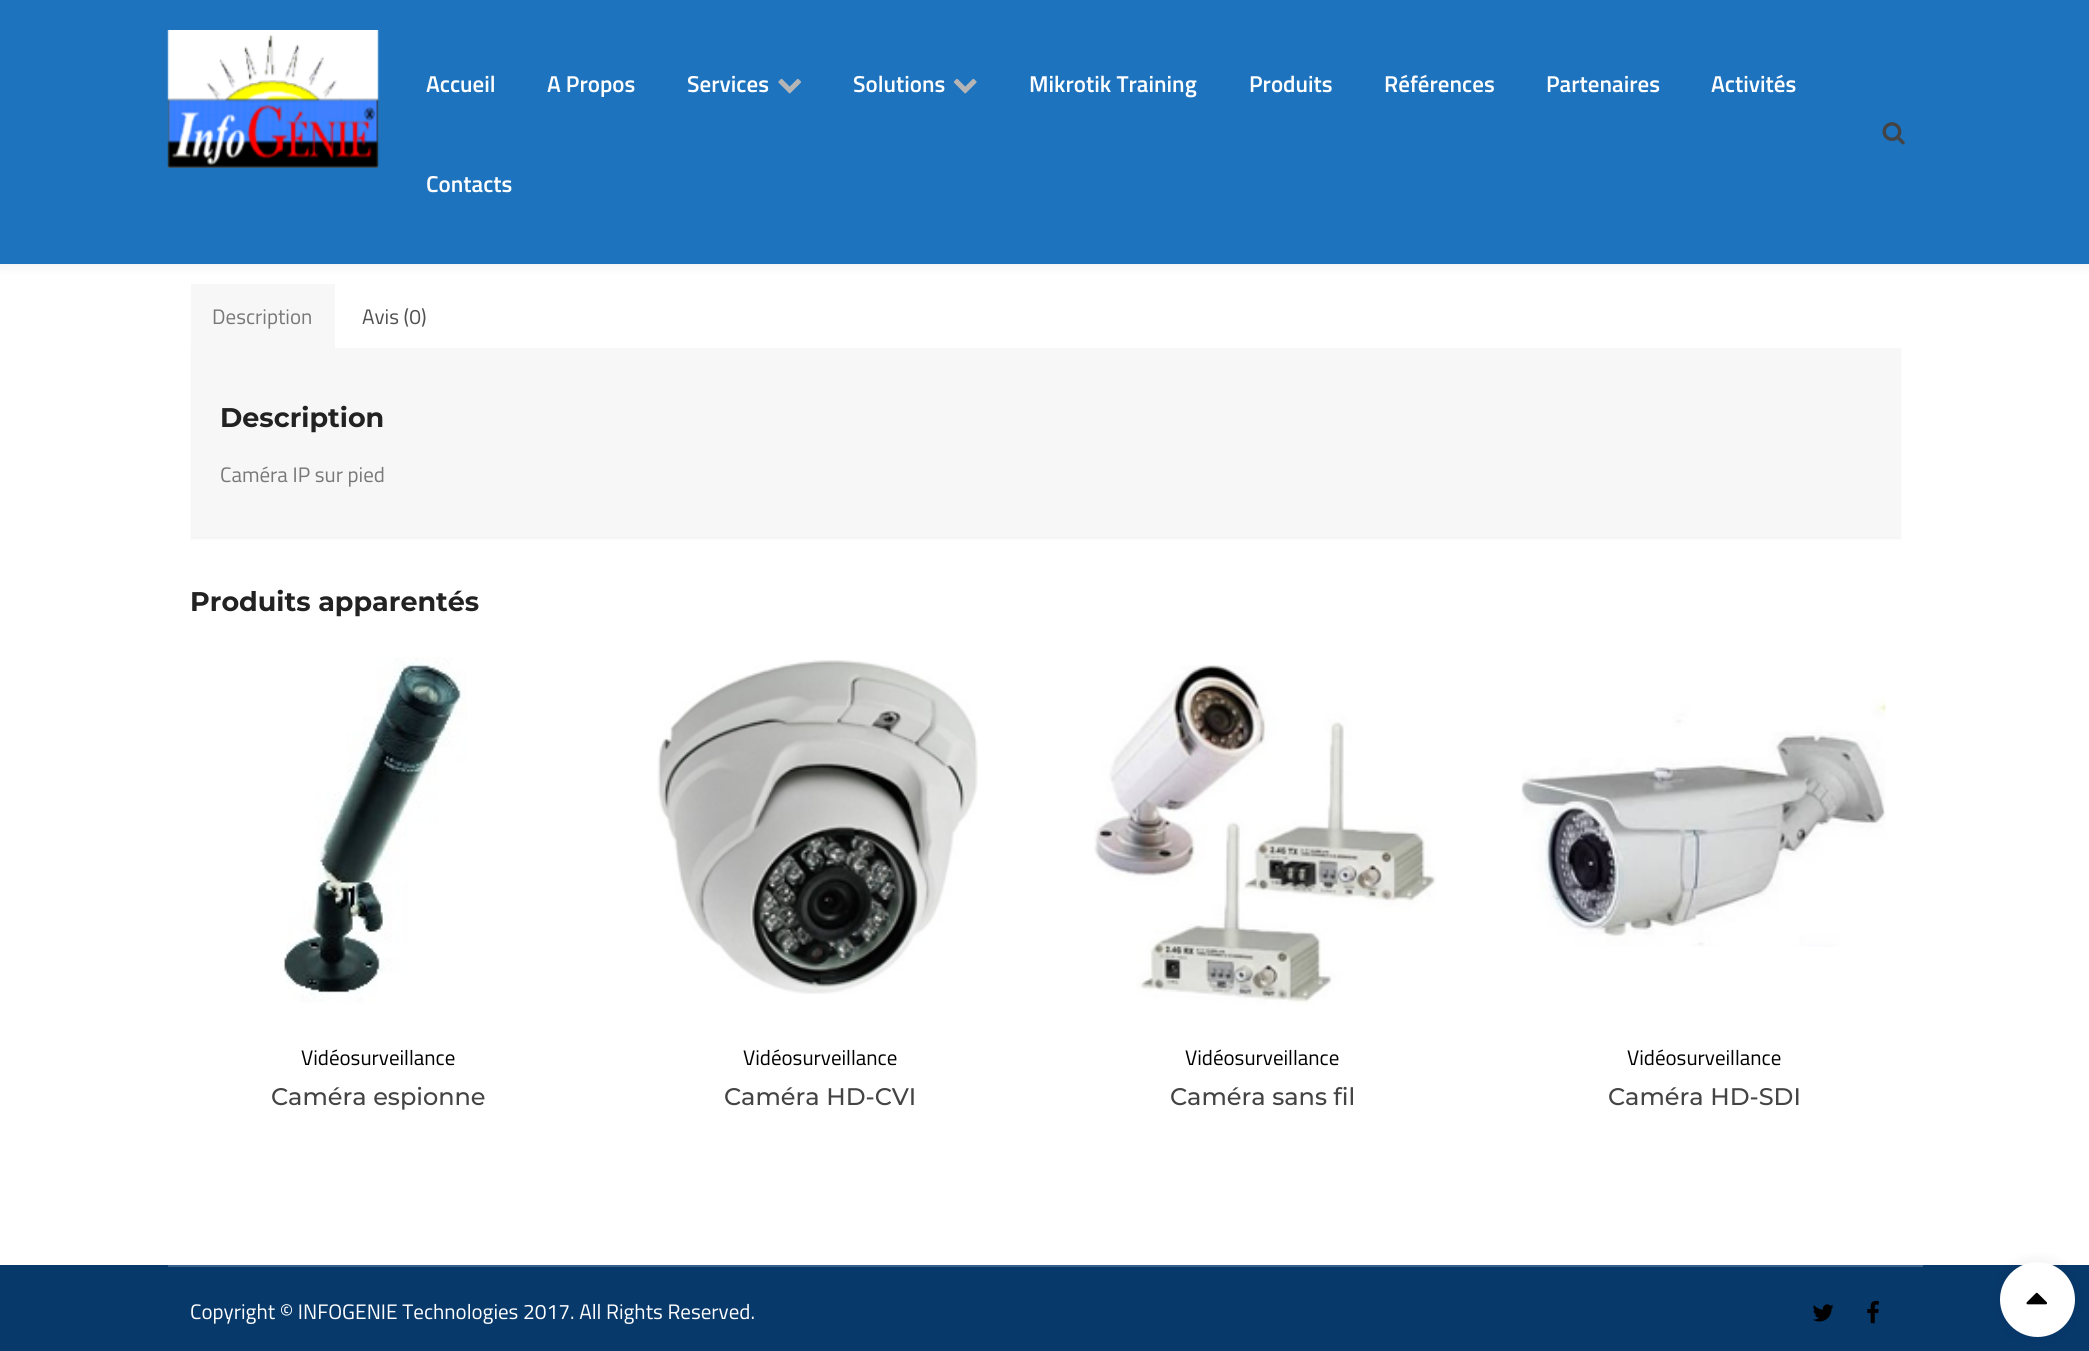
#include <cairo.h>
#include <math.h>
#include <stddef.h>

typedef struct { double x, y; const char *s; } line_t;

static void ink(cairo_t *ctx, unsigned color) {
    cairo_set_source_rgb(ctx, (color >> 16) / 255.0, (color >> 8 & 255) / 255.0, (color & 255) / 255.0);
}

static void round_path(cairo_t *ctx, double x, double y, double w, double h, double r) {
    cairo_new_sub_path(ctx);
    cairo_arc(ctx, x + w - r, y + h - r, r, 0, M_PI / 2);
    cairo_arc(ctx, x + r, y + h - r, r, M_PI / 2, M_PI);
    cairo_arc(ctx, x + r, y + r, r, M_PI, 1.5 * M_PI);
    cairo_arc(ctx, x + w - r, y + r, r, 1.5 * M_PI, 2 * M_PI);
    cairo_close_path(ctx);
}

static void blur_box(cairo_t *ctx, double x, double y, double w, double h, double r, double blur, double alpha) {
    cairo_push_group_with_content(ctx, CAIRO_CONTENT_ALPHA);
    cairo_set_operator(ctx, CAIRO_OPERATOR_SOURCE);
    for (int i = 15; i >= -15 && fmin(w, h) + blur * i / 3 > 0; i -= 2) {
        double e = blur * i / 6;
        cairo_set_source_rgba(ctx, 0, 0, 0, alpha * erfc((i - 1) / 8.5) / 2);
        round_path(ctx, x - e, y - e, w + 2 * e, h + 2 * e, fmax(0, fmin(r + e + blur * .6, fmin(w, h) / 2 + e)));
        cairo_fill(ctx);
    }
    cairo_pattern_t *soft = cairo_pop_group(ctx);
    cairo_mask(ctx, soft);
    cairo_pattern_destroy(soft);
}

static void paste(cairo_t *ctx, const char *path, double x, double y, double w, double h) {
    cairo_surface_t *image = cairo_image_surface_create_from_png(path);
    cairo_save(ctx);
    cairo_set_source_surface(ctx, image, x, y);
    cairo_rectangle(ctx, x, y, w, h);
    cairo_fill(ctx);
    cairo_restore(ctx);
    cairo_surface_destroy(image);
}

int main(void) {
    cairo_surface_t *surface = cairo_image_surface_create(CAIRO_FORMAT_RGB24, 2089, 1351);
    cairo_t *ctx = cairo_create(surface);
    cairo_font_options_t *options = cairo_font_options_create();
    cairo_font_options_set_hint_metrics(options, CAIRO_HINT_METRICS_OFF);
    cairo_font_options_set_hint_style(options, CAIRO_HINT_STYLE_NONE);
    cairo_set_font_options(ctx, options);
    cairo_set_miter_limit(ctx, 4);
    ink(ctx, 0xFFFFFF);
    cairo_paint(ctx);
    ink(ctx, 0x000000);
    blur_box(ctx, 191, 350, 1710, 189, 0, 1, 0.05);
    ink(ctx, 0xF7F7F7);
    cairo_rectangle(ctx, 191, 284, 144, 64);
    cairo_fill(ctx);
    ink(ctx, 0x000000);
    blur_box(ctx, 0, 0, 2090, 264, 0, 7.5, 0.08);
    ink(ctx, 0x1E73BE);
    cairo_rectangle(ctx, 0, 0, 2089, 264);
    cairo_fill(ctx);
    paste(ctx, "media/1.png", 167, 30, 213, 138);
    cairo_select_font_face(ctx, "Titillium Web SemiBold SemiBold", CAIRO_FONT_SLANT_NORMAL, CAIRO_FONT_WEIGHT_NORMAL);
    cairo_set_font_size(ctx, 23);
    ink(ctx, 0xFFFFFF);
    {
        static const line_t items[] = {
            {426, 92, "Accueil"},
            {547, 92, "A Propos"},
            {687, 92, "Services"},
        };
        for (size_t i = 0; i < sizeof items / sizeof *items; i++) {
            cairo_move_to(ctx, items[i].x, items[i].y);
            cairo_show_text(ctx, items[i].s);
        }
    }
    paste(ctx, "media/2.png", 778, 78, 24, 16);
    cairo_move_to(ctx, 853, 92);
    cairo_show_text(ctx, "Solutions");
    paste(ctx, "media/3.png", 953, 78, 24, 16);
    {
        static const line_t items[] = {
            {1029, 92, "Mikrotik Training"},
            {1249, 92, "Produits"},
            {1384, 92, "Références"},
            {1546, 92, "Partenaires"},
            {1711, 92, "Activités"},
            {426, 192, "Contacts"},
        };
        for (size_t i = 0; i < sizeof items / sizeof *items; i++) {
            cairo_move_to(ctx, items[i].x, items[i].y);
            cairo_show_text(ctx, items[i].s);
        }
    }
    paste(ctx, "media/4.png", 1882, 122, 23, 23);
    cairo_select_font_face(ctx, "Titillium Web", CAIRO_FONT_SLANT_NORMAL, CAIRO_FONT_WEIGHT_NORMAL);
    cairo_set_font_size(ctx, 21);
    ink(ctx, 0x797878);
    cairo_move_to(ctx, 212, 324);
    cairo_show_text(ctx, "Description");
    ink(ctx, 0x515151);
    cairo_move_to(ctx, 362, 324);
    cairo_show_text(ctx, "Avis (0)");
    ink(ctx, 0xF7F7F7);
    cairo_rectangle(ctx, 191, 348, 1710, 189);
    cairo_fill(ctx);
    cairo_select_font_face(ctx, "Montserrat", CAIRO_FONT_SLANT_NORMAL, CAIRO_FONT_WEIGHT_BOLD);
    cairo_set_font_size(ctx, 27);
    ink(ctx, 0x222222);
    cairo_move_to(ctx, 220, 427);
    cairo_show_text(ctx, "Description");
    cairo_select_font_face(ctx, "Titillium Web", CAIRO_FONT_SLANT_NORMAL, CAIRO_FONT_WEIGHT_NORMAL);
    cairo_set_font_size(ctx, 21);
    ink(ctx, 0x797878);
    cairo_move_to(ctx, 220, 482);
    cairo_show_text(ctx, "Caméra IP sur pied");
    cairo_select_font_face(ctx, "Montserrat", CAIRO_FONT_SLANT_NORMAL, CAIRO_FONT_WEIGHT_BOLD);
    cairo_set_font_size(ctx, 27);
    ink(ctx, 0x222222);
    cairo_move_to(ctx, 190, 611);
    cairo_show_text(ctx, "Produits apparentés");
    paste(ctx, "media/5.png", 280, 657, 187, 346);
    cairo_select_font_face(ctx, "Titillium Web", CAIRO_FONT_SLANT_NORMAL, CAIRO_FONT_WEIGHT_NORMAL);
    cairo_set_font_size(ctx, 21);
    ink(ctx, 0x000000);
    cairo_move_to(ctx, 301, 1065);
    cairo_show_text(ctx, "Vidéosurveillance");
    cairo_select_font_face(ctx, "Montserrat Medium", CAIRO_FONT_SLANT_NORMAL, CAIRO_FONT_WEIGHT_NORMAL);
    cairo_set_font_size(ctx, 24);
    ink(ctx, 0x444444);
    cairo_move_to(ctx, 271, 1105);
    cairo_show_text(ctx, "Caméra espionne");
    paste(ctx, "media/6.png", 657, 660, 321, 334);
    cairo_select_font_face(ctx, "Titillium Web", CAIRO_FONT_SLANT_NORMAL, CAIRO_FONT_WEIGHT_NORMAL);
    cairo_set_font_size(ctx, 21);
    ink(ctx, 0x000000);
    cairo_move_to(ctx, 743, 1065);
    cairo_show_text(ctx, "Vidéosurveillance");
    cairo_select_font_face(ctx, "Montserrat Medium", CAIRO_FONT_SLANT_NORMAL, CAIRO_FONT_WEIGHT_NORMAL);
    cairo_set_font_size(ctx, 24);
    ink(ctx, 0x444444);
    cairo_move_to(ctx, 724, 1105);
    cairo_show_text(ctx, "Caméra HD-CVI");
    paste(ctx, "media/7.png", 1094, 665, 342, 340);
    cairo_select_font_face(ctx, "Titillium Web", CAIRO_FONT_SLANT_NORMAL, CAIRO_FONT_WEIGHT_NORMAL);
    cairo_set_font_size(ctx, 21);
    ink(ctx, 0x000000);
    cairo_move_to(ctx, 1185, 1065);
    cairo_show_text(ctx, "Vidéosurveillance");
    cairo_select_font_face(ctx, "Montserrat Medium", CAIRO_FONT_SLANT_NORMAL, CAIRO_FONT_WEIGHT_NORMAL);
    cairo_set_font_size(ctx, 24);
    ink(ctx, 0x444444);
    cairo_move_to(ctx, 1170, 1105);
    cairo_show_text(ctx, "Caméra sans fil");
    paste(ctx, "media/8.png", 1521, 697, 365, 250);
    cairo_select_font_face(ctx, "Titillium Web", CAIRO_FONT_SLANT_NORMAL, CAIRO_FONT_WEIGHT_NORMAL);
    cairo_set_font_size(ctx, 21);
    ink(ctx, 0x000000);
    cairo_move_to(ctx, 1627, 1065);
    cairo_show_text(ctx, "Vidéosurveillance");
    cairo_select_font_face(ctx, "Montserrat Medium", CAIRO_FONT_SLANT_NORMAL, CAIRO_FONT_WEIGHT_NORMAL);
    cairo_set_font_size(ctx, 24);
    ink(ctx, 0x444444);
    cairo_move_to(ctx, 1608, 1105);
    cairo_show_text(ctx, "Caméra HD-SDI");
    ink(ctx, 0x07396B);
    cairo_rectangle(ctx, 0, 1265, 2089, 86);
    cairo_fill(ctx);
    ink(ctx, 0x396189);
    cairo_rectangle(ctx, 168, 1265, 1755, 2);
    cairo_fill(ctx);
    cairo_select_font_face(ctx, "Titillium Web", CAIRO_FONT_SLANT_NORMAL, CAIRO_FONT_WEIGHT_NORMAL);
    cairo_set_font_size(ctx, 21);
    ink(ctx, 0xFFFFFF);
    cairo_move_to(ctx, 190, 1319);
    cairo_show_text(ctx, "Copyright © INFOGENIE Technologies 2017. All Rights Reserved.");
    paste(ctx, "media/9.png", 1812, 1304, 22, 18);
    paste(ctx, "media/10.png", 1867, 1300, 12, 24);
    ink(ctx, 0x000000);
    blur_box(ctx, 2000, 1262, 75, 75, 37.5, 7.5, 0.08);
    ink(ctx, 0xFFFFFF);
    cairo_arc(ctx, 2037.5, 1299.5, 37.5, 0, 2 * M_PI);
    cairo_fill(ctx);
    paste(ctx, "media/11.png", 2026, 1292, 21, 13);
    cairo_surface_write_to_png(surface, "image.png");
    cairo_font_options_destroy(options);
    cairo_destroy(ctx);
    cairo_surface_destroy(surface);
    return 0;
}
